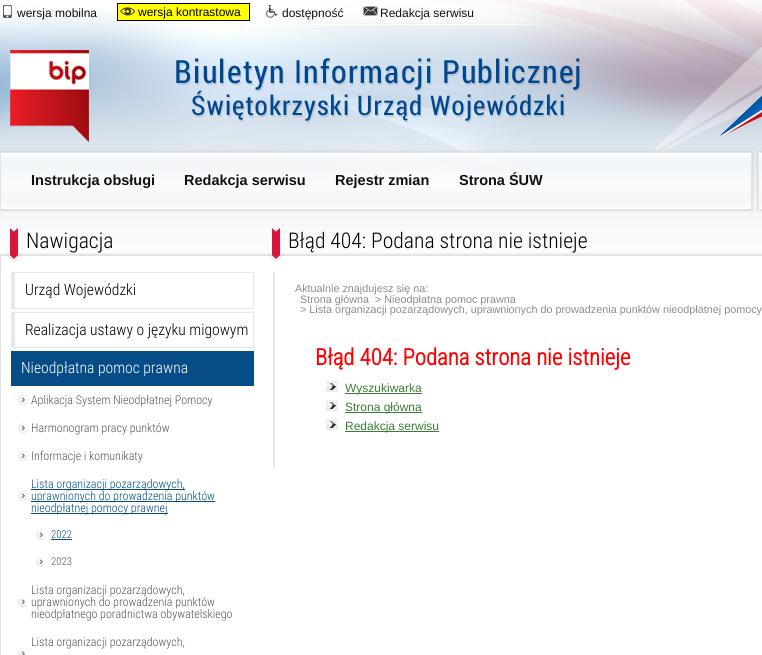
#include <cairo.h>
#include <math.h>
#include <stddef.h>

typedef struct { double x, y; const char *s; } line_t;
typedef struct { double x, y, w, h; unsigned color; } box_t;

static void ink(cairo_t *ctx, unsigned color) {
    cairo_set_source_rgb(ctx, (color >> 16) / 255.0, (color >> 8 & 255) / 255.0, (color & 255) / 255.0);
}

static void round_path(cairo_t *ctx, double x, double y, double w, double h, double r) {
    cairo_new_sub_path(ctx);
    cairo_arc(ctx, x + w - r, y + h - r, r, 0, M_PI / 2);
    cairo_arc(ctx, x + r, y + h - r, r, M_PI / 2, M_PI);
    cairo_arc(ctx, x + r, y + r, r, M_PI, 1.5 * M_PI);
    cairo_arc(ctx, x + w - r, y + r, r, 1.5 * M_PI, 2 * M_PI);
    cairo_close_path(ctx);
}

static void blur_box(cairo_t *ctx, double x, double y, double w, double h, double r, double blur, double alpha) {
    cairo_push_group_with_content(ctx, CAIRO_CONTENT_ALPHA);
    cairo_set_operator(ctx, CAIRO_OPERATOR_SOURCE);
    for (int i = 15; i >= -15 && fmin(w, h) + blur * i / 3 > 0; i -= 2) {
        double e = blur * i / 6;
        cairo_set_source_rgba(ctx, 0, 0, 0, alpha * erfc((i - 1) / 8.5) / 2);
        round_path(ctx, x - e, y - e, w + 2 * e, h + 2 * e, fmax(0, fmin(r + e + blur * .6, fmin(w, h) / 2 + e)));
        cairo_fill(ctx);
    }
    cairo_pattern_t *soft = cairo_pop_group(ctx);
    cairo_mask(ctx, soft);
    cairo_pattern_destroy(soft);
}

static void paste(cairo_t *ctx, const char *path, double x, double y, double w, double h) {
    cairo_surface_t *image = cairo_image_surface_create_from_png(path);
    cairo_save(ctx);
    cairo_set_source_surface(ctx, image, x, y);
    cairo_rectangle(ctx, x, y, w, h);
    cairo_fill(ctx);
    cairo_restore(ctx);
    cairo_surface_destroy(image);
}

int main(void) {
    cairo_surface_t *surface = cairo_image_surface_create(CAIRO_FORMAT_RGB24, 762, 655);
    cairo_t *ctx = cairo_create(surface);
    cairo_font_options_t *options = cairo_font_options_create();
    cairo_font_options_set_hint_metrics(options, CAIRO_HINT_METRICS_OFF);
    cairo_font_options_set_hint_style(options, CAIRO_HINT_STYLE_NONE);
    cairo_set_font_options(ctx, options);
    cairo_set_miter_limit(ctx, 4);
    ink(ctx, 0xFFFFFF);
    cairo_paint(ctx);
    paste(ctx, "media/1.png", 0, 0, 762, 255);
    paste(ctx, "media/2.png", 141, 0, 408, 25);
    paste(ctx, "media/3.png", 3, 5, 9, 13);
    cairo_select_font_face(ctx, "Liberation Sans", CAIRO_FONT_SLANT_NORMAL, CAIRO_FONT_WEIGHT_NORMAL);
    cairo_set_font_size(ctx, 12);
    ink(ctx, 0x111111);
    cairo_move_to(ctx, 17, 17);
    cairo_show_text(ctx, "wersja mobilna");
    ink(ctx, 0xFFFF00);
    cairo_rectangle(ctx, 117.5, 3.5, 132, 17);
    cairo_fill_preserve(ctx);
    ink(ctx, 0x000000);
    cairo_set_line_width(ctx, 1);
    cairo_stroke(ctx);
    paste(ctx, "media/4.png", 120, 7, 15, 9);
    cairo_move_to(ctx, 138, 16);
    cairo_show_text(ctx, "wersja kontrastowa");
    paste(ctx, "media/5.png", 266, 5, 12, 13);
    ink(ctx, 0x111111);
    cairo_move_to(ctx, 282, 17);
    cairo_show_text(ctx, "dostępność");
    paste(ctx, "media/6.png", 363, 6, 15, 10);
    cairo_move_to(ctx, 380, 17);
    cairo_show_text(ctx, "Redakcja serwisu");
    paste(ctx, "media/7.png", 10, 50, 571, 92);
    paste(ctx, "media/8.png", 655, 47, 107, 109);
    cairo_save(ctx);
    cairo_set_fill_rule(ctx, CAIRO_FILL_RULE_EVEN_ODD);
    cairo_new_path(ctx);
    cairo_move_to(ctx, 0, 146);
    cairo_line_to(ctx, 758, 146);
    cairo_line_to(ctx, 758, 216);
    cairo_line_to(ctx, 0, 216);
    cairo_close_path(ctx);
    cairo_move_to(ctx, 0, 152);
    cairo_line_to(ctx, 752, 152);
    cairo_line_to(ctx, 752, 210);
    cairo_line_to(ctx, 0, 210);
    cairo_close_path(ctx);
    cairo_clip(ctx);
    ink(ctx, 0xC7C7C7);
    blur_box(ctx, 0, 152, 752, 58, 0, 1.5, 1);
    cairo_restore(ctx);
    paste(ctx, "media/9.png", 1, 153, 750, 56);
    cairo_rectangle(ctx, 0.5, 152.5, 751, 57);
    ink(ctx, 0xDFE4E9);
    cairo_stroke(ctx);
    cairo_select_font_face(ctx, "Liberation Sans", CAIRO_FONT_SLANT_NORMAL, CAIRO_FONT_WEIGHT_BOLD);
    cairo_set_font_size(ctx, 14.5);
    ink(ctx, 0x111111);
    {
        static const line_t items[] = {
            {31, 185, "Instrukcja obsługi"},
            {184, 185, "Redakcja serwisu"},
            {335, 185, "Rejestr zmian"},
            {459, 185, "Strona ŚUW"},
        };
        for (size_t i = 0; i < sizeof items / sizeof *items; i++) {
            cairo_move_to(ctx, items[i].x, items[i].y);
            cairo_show_text(ctx, items[i].s);
        }
    }
    cairo_save(ctx);
    cairo_set_fill_rule(ctx, CAIRO_FILL_RULE_EVEN_ODD);
    cairo_new_path(ctx);
    cairo_move_to(ctx, 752, 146);
    cairo_line_to(ctx, 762, 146);
    cairo_line_to(ctx, 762, 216);
    cairo_line_to(ctx, 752, 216);
    cairo_close_path(ctx);
    cairo_move_to(ctx, 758, 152);
    cairo_line_to(ctx, 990, 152);
    cairo_line_to(ctx, 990, 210);
    cairo_line_to(ctx, 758, 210);
    cairo_close_path(ctx);
    cairo_clip(ctx);
    ink(ctx, 0xC7C7C7);
    blur_box(ctx, 758, 152, 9, 58, 0, 1.5, 1);
    cairo_restore(ctx);
    paste(ctx, "media/10.png", 759, 153, 3, 56);
    cairo_rectangle(ctx, 758.5, 152.5, 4, 57);
    ink(ctx, 0xDFE4E9);
    cairo_stroke(ctx);
    ink(ctx, 0xC7C7C7);
    blur_box(ctx, 0, 255, 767, 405, 0, 1.5, 1);
    ink(ctx, 0xFFFFFF);
    cairo_rectangle(ctx, 0.5, 255.5, 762, 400);
    cairo_fill_preserve(ctx);
    ink(ctx, 0xE2E2E2);
    cairo_stroke(ctx);
    paste(ctx, "media/11.png", 6, 228, 16, 35);
    cairo_select_font_face(ctx, "Roboto Condensed Light", CAIRO_FONT_SLANT_NORMAL, CAIRO_FONT_WEIGHT_NORMAL);
    cairo_set_font_size(ctx, 21.6);
    ink(ctx, 0x000000);
    cairo_move_to(ctx, 26, 248);
    cairo_show_text(ctx, "Nawigacja");
    {
        static const box_t items[] = {
            {11, 272, 243, 1, 0xE8E8E8},
            {253, 272, 1, 37, 0xE8E8E8},
            {11, 308, 243, 1, 0xE8E8E8},
            {11, 272, 4, 37, 0xE8E8E8},
        };
        for (size_t i = 0; i < sizeof items / sizeof *items; i++) {
            ink(ctx, items[i].color);
            cairo_rectangle(ctx, items[i].x, items[i].y, items[i].w, items[i].h);
            cairo_fill(ctx);
        }
    }
    cairo_set_font_size(ctx, 15.6);
    ink(ctx, 0x000000);
    cairo_move_to(ctx, 25, 295);
    cairo_show_text(ctx, "Urząd Wojewódzki");
    {
        static const box_t items[] = {
            {11, 312, 243, 1, 0xE8E8E8},
            {253, 312, 1, 36, 0xE8E8E8},
            {11, 347, 243, 1, 0xE8E8E8},
            {11, 312, 4, 36, 0xE8E8E8},
        };
        for (size_t i = 0; i < sizeof items / sizeof *items; i++) {
            ink(ctx, items[i].color);
            cairo_rectangle(ctx, items[i].x, items[i].y, items[i].w, items[i].h);
            cairo_fill(ctx);
        }
    }
    ink(ctx, 0x000000);
    cairo_move_to(ctx, 25, 335);
    cairo_show_text(ctx, "Realizacja ustawy o języku migowym");
    ink(ctx, 0x064C86);
    cairo_rectangle(ctx, 11, 351, 243, 35);
    cairo_fill(ctx);
    ink(ctx, 0xFFFFFF);
    cairo_move_to(ctx, 21, 373);
    cairo_show_text(ctx, "Nieodpłatna pomoc prawna");
    paste(ctx, "media/12.png", 18, 395, 10, 10);
    cairo_set_font_size(ctx, 12);
    ink(ctx, 0x565656);
    cairo_move_to(ctx, 31, 404);
    cairo_show_text(ctx, "Aplikacja System Nieodpłatnej Pomocy");
    paste(ctx, "media/12.png", 18, 423, 10, 10);
    cairo_move_to(ctx, 31, 432);
    cairo_show_text(ctx, "Harmonogram pracy punktów");
    paste(ctx, "media/12.png", 18, 451, 10, 10);
    cairo_move_to(ctx, 31, 460);
    cairo_show_text(ctx, "Informacje i komunikaty");
    paste(ctx, "media/12.png", 18, 491, 10, 10);
    ink(ctx, 0x064C86);
    cairo_rectangle(ctx, 31, 489, 154, 1);
    cairo_fill(ctx);
    cairo_move_to(ctx, 31, 488);
    cairo_show_text(ctx, "Lista organizacji pozarządowych,");
    cairo_rectangle(ctx, 31, 501, 184, 1);
    cairo_fill(ctx);
    cairo_move_to(ctx, 31, 500);
    cairo_show_text(ctx, "uprawnionych do prowadzenia punktów");
    cairo_rectangle(ctx, 31, 513, 137, 1);
    cairo_fill(ctx);
    cairo_move_to(ctx, 31, 512);
    cairo_show_text(ctx, "nieodpłatnej pomocy prawnej");
    paste(ctx, "media/12.png", 36, 530, 10, 10);
    cairo_set_font_size(ctx, 10.8);
    cairo_move_to(ctx, 51, 538);
    cairo_show_text(ctx, "2022");
    cairo_rectangle(ctx, 51, 539, 21, 1);
    cairo_fill(ctx);
    paste(ctx, "media/12.png", 36, 557, 10, 10);
    ink(ctx, 0x565656);
    cairo_move_to(ctx, 51, 565);
    cairo_show_text(ctx, "2023");
    paste(ctx, "media/12.png", 18, 597, 10, 10);
    cairo_set_font_size(ctx, 12);
    {
        static const line_t items[] = {
            {31, 594, "Lista organizacji pozarządowych,"},
            {31, 606, "uprawnionych do prowadzenia punktów"},
            {31, 618, "nieodpłatnego poradnictwa obywatelskiego"},
        };
        for (size_t i = 0; i < sizeof items / sizeof *items; i++) {
            cairo_move_to(ctx, items[i].x, items[i].y);
            cairo_show_text(ctx, items[i].s);
        }
    }
    paste(ctx, "media/13.png", 18, 649, 10, 6);
    cairo_move_to(ctx, 31, 646);
    cairo_show_text(ctx, "Lista organizacji pozarządowych,");
    paste(ctx, "media/11.png", 268, 228, 16, 35);
    cairo_set_font_size(ctx, 21.6);
    ink(ctx, 0x000000);
    cairo_move_to(ctx, 288, 248);
    cairo_show_text(ctx, "Błąd 404: Podana strona nie istnieje");
    ink(ctx, 0xE8E8E8);
    cairo_rectangle(ctx, 273, 272, 2, 196);
    cairo_fill(ctx);
    cairo_select_font_face(ctx, "Liberation Sans", CAIRO_FONT_SLANT_NORMAL, CAIRO_FONT_WEIGHT_NORMAL);
    cairo_set_font_size(ctx, 10.8);
    ink(ctx, 0x8C8C8C);
    {
        static const line_t items[] = {
            {295, 292, "Aktualnie znajdujesz się na:"},
            {300, 303, "Strona główna"},
            {375, 303, "> Nieodpłatna pomoc prawna"},
            {300, 313, "> Lista organizacji pozarządowych, uprawnionych do prowadzenia punktów nieodpłatnej pomocy"},
        };
        for (size_t i = 0; i < sizeof items / sizeof *items; i++) {
            cairo_move_to(ctx, items[i].x, items[i].y);
            cairo_show_text(ctx, items[i].s);
        }
    }
    cairo_select_font_face(ctx, "Roboto Condensed", CAIRO_FONT_SLANT_NORMAL, CAIRO_FONT_WEIGHT_BOLD);
    cairo_set_font_size(ctx, 22.75);
    ink(ctx, 0xFF0000);
    cairo_move_to(ctx, 315, 365);
    cairo_show_text(ctx, "Błąd 404: Podana strona nie istnieje");
    paste(ctx, "media/14.png", 326, 381, 12, 11);
    ink(ctx, 0x397E32);
    cairo_rectangle(ctx, 345, 393, 77, 1);
    cairo_fill(ctx);
    cairo_select_font_face(ctx, "Liberation Sans", CAIRO_FONT_SLANT_NORMAL, CAIRO_FONT_WEIGHT_NORMAL);
    cairo_set_font_size(ctx, 12);
    cairo_move_to(ctx, 345, 392);
    cairo_show_text(ctx, "Wyszukiwarka");
    paste(ctx, "media/14.png", 326, 400, 12, 11);
    cairo_rectangle(ctx, 345, 412, 77, 1);
    cairo_fill(ctx);
    cairo_move_to(ctx, 345, 411);
    cairo_show_text(ctx, "Strona główna");
    paste(ctx, "media/14.png", 326, 419, 12, 11);
    cairo_rectangle(ctx, 345, 431, 94, 1);
    cairo_fill(ctx);
    cairo_move_to(ctx, 345, 430);
    cairo_show_text(ctx, "Redakcja serwisu");
    cairo_surface_write_to_png(surface, "image.png");
    cairo_font_options_destroy(options);
    cairo_destroy(ctx);
    cairo_surface_destroy(surface);
    return 0;
}
